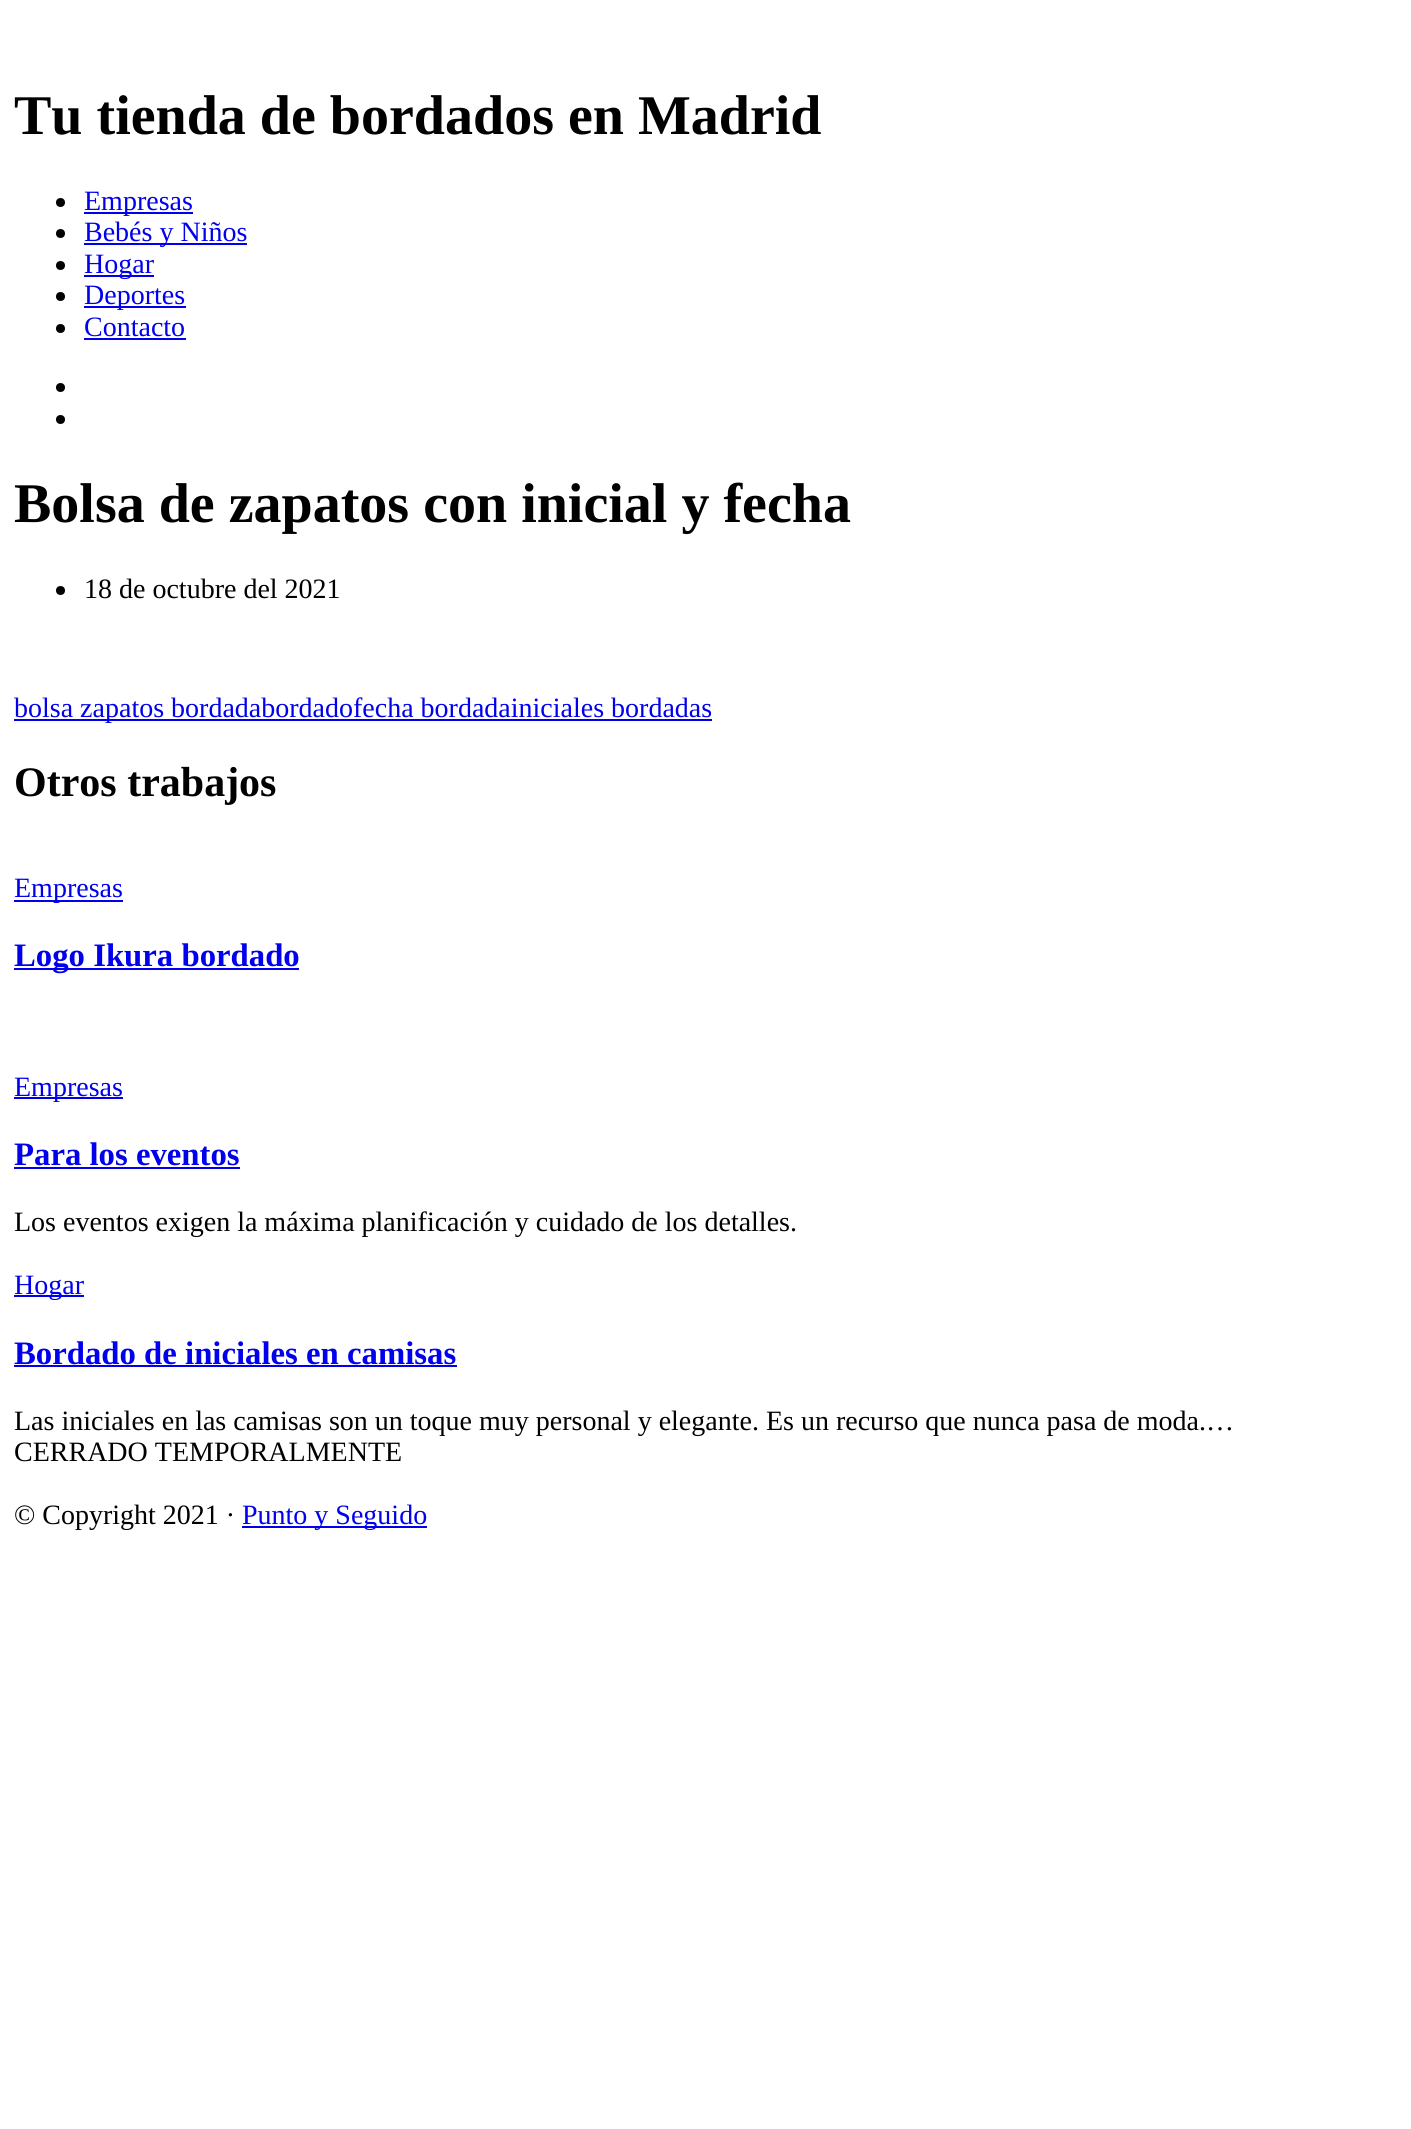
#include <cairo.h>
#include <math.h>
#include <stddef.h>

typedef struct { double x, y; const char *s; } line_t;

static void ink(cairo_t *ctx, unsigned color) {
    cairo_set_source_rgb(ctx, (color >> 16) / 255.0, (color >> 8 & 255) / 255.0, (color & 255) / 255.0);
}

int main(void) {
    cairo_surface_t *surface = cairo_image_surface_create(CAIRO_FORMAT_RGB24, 1411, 2129);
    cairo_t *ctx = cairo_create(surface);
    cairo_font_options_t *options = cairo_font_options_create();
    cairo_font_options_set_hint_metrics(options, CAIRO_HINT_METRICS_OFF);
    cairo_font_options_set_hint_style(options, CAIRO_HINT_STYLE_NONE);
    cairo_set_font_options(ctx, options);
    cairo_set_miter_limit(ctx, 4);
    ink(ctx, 0xFFFFFF);
    cairo_paint(ctx);
    cairo_select_font_face(ctx, "Liberation Serif", CAIRO_FONT_SLANT_NORMAL, CAIRO_FONT_WEIGHT_BOLD);
    cairo_set_font_size(ctx, 56);
    ink(ctx, 0x000000);
    cairo_move_to(ctx, 14, 134);
    cairo_show_text(ctx, "Tu tienda de bordados en Madrid");
    cairo_new_path(ctx);
    cairo_arc(ctx, 60.5, 202.5, 4.5, 0, 2 * M_PI);
    cairo_fill(ctx);
    ink(ctx, 0x0000EE);
    cairo_rectangle(ctx, 84, 212, 109, 2);
    cairo_fill(ctx);
    cairo_select_font_face(ctx, "Liberation Serif", CAIRO_FONT_SLANT_NORMAL, CAIRO_FONT_WEIGHT_NORMAL);
    cairo_set_font_size(ctx, 28);
    cairo_move_to(ctx, 84, 210);
    cairo_show_text(ctx, "Empresas");
    ink(ctx, 0x000000);
    cairo_new_path(ctx);
    cairo_arc(ctx, 60.5, 233.5, 4.5, 0, 2 * M_PI);
    cairo_fill(ctx);
    ink(ctx, 0x0000EE);
    cairo_rectangle(ctx, 84, 243, 163, 2);
    cairo_fill(ctx);
    cairo_move_to(ctx, 84, 241);
    cairo_show_text(ctx, "Bebés y Niños");
    ink(ctx, 0x000000);
    cairo_new_path(ctx);
    cairo_arc(ctx, 60.5, 265.5, 4.5, 0, 2 * M_PI);
    cairo_fill(ctx);
    ink(ctx, 0x0000EE);
    cairo_rectangle(ctx, 84, 275, 70, 2);
    cairo_fill(ctx);
    cairo_move_to(ctx, 84, 273);
    cairo_show_text(ctx, "Hogar");
    ink(ctx, 0x000000);
    cairo_new_path(ctx);
    cairo_arc(ctx, 60.5, 296.5, 4.5, 0, 2 * M_PI);
    cairo_fill(ctx);
    ink(ctx, 0x0000EE);
    cairo_rectangle(ctx, 84, 306, 102, 2);
    cairo_fill(ctx);
    cairo_move_to(ctx, 84, 304);
    cairo_show_text(ctx, "Deportes");
    ink(ctx, 0x000000);
    cairo_new_path(ctx);
    cairo_arc(ctx, 60.5, 328.5, 4.5, 0, 2 * M_PI);
    cairo_fill(ctx);
    ink(ctx, 0x0000EE);
    cairo_move_to(ctx, 84, 336);
    cairo_show_text(ctx, "Contacto");
    cairo_rectangle(ctx, 84, 338, 102, 2);
    cairo_fill(ctx);
    ink(ctx, 0x000000);
    cairo_arc(ctx, 60.5, 387.5, 4.5, 0, 2 * M_PI);
    cairo_fill(ctx);
    cairo_arc(ctx, 60.5, 419.5, 4.5, 0, 2 * M_PI);
    cairo_fill(ctx);
    cairo_select_font_face(ctx, "Liberation Serif", CAIRO_FONT_SLANT_NORMAL, CAIRO_FONT_WEIGHT_BOLD);
    cairo_set_font_size(ctx, 56);
    cairo_move_to(ctx, 14, 522);
    cairo_show_text(ctx, "Bolsa de zapatos con inicial y fecha");
    cairo_new_path(ctx);
    cairo_arc(ctx, 60.5, 590.5, 4.5, 0, 2 * M_PI);
    cairo_fill(ctx);
    cairo_select_font_face(ctx, "Liberation Serif", CAIRO_FONT_SLANT_NORMAL, CAIRO_FONT_WEIGHT_NORMAL);
    cairo_set_font_size(ctx, 28);
    cairo_move_to(ctx, 84, 598);
    cairo_show_text(ctx, "18 de octubre del 2021");
    ink(ctx, 0x0000EE);
    cairo_rectangle(ctx, 14, 719, 698, 2);
    cairo_fill(ctx);
    cairo_move_to(ctx, 14, 717);
    cairo_show_text(ctx, "bolsa zapatos bordadabordadofecha bordadainiciales bordadas");
    cairo_select_font_face(ctx, "Liberation Serif", CAIRO_FONT_SLANT_NORMAL, CAIRO_FONT_WEIGHT_BOLD);
    cairo_set_font_size(ctx, 42);
    ink(ctx, 0x000000);
    cairo_move_to(ctx, 14, 796);
    cairo_show_text(ctx, "Otros trabajos");
    ink(ctx, 0x0000EE);
    cairo_rectangle(ctx, 14, 900, 109, 2);
    cairo_fill(ctx);
    cairo_select_font_face(ctx, "Liberation Serif", CAIRO_FONT_SLANT_NORMAL, CAIRO_FONT_WEIGHT_NORMAL);
    cairo_set_font_size(ctx, 28);
    cairo_move_to(ctx, 14, 897);
    cairo_show_text(ctx, "Empresas");
    cairo_rectangle(ctx, 14, 968, 285, 2);
    cairo_fill(ctx);
    cairo_select_font_face(ctx, "Liberation Serif", CAIRO_FONT_SLANT_NORMAL, CAIRO_FONT_WEIGHT_BOLD);
    cairo_set_font_size(ctx, 32.75);
    cairo_move_to(ctx, 14, 966);
    cairo_show_text(ctx, "Logo Ikura bordado");
    cairo_rectangle(ctx, 14, 1097, 109, 2);
    cairo_fill(ctx);
    cairo_select_font_face(ctx, "Liberation Serif", CAIRO_FONT_SLANT_NORMAL, CAIRO_FONT_WEIGHT_NORMAL);
    cairo_set_font_size(ctx, 28);
    cairo_move_to(ctx, 14, 1096);
    cairo_show_text(ctx, "Empresas");
    cairo_select_font_face(ctx, "Liberation Serif", CAIRO_FONT_SLANT_NORMAL, CAIRO_FONT_WEIGHT_BOLD);
    cairo_set_font_size(ctx, 32.75);
    cairo_move_to(ctx, 14, 1165);
    cairo_show_text(ctx, "Para los eventos");
    cairo_rectangle(ctx, 14, 1167, 226, 2);
    cairo_fill(ctx);
    cairo_select_font_face(ctx, "Liberation Serif", CAIRO_FONT_SLANT_NORMAL, CAIRO_FONT_WEIGHT_NORMAL);
    cairo_set_font_size(ctx, 28);
    ink(ctx, 0x000000);
    cairo_move_to(ctx, 14, 1231);
    cairo_show_text(ctx, "Los eventos exigen la máxima planificación y cuidado de los detalles.");
    ink(ctx, 0x0000EE);
    cairo_rectangle(ctx, 14, 1295, 70, 2);
    cairo_fill(ctx);
    cairo_move_to(ctx, 14, 1294);
    cairo_show_text(ctx, "Hogar");
    cairo_select_font_face(ctx, "Liberation Serif", CAIRO_FONT_SLANT_NORMAL, CAIRO_FONT_WEIGHT_BOLD);
    cairo_set_font_size(ctx, 32.75);
    cairo_move_to(ctx, 14, 1364);
    cairo_show_text(ctx, "Bordado de iniciales en camisas");
    cairo_rectangle(ctx, 14, 1365, 443, 2);
    cairo_fill(ctx);
    cairo_select_font_face(ctx, "Liberation Serif", CAIRO_FONT_SLANT_NORMAL, CAIRO_FONT_WEIGHT_NORMAL);
    cairo_set_font_size(ctx, 28);
    ink(ctx, 0x000000);
    {
        static const line_t items[] = {
            {14, 1430, "Las iniciales en las camisas son un toque muy personal y elegante. Es un recurso que nunca pasa de moda.…"},
            {14, 1461, "CERRADO TEMPORALMENTE"},
            {14, 1524, "© Copyright 2021 ·"},
        };
        for (size_t i = 0; i < sizeof items / sizeof *items; i++) {
            cairo_move_to(ctx, items[i].x, items[i].y);
            cairo_show_text(ctx, items[i].s);
        }
    }
    ink(ctx, 0x0000EE);
    cairo_rectangle(ctx, 242, 1526, 185, 2);
    cairo_fill(ctx);
    cairo_move_to(ctx, 242, 1524);
    cairo_show_text(ctx, "Punto y Seguido");
    cairo_surface_write_to_png(surface, "image.png");
    cairo_font_options_destroy(options);
    cairo_destroy(ctx);
    cairo_surface_destroy(surface);
    return 0;
}
